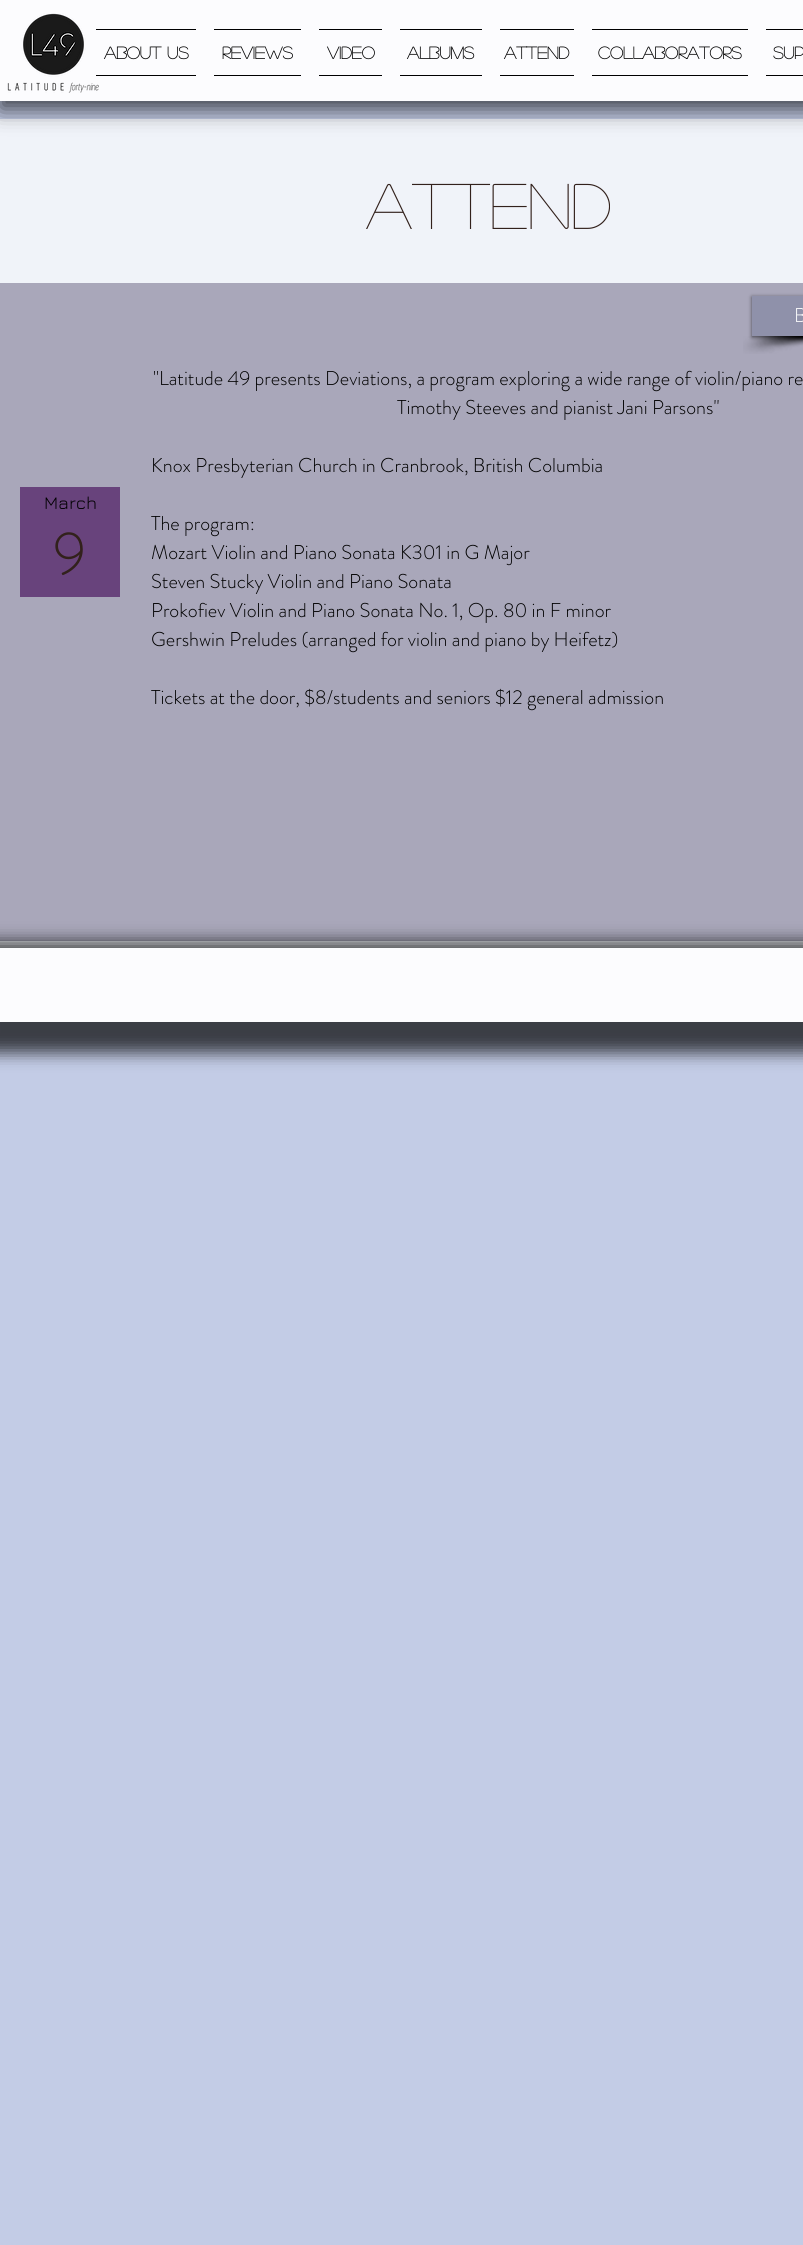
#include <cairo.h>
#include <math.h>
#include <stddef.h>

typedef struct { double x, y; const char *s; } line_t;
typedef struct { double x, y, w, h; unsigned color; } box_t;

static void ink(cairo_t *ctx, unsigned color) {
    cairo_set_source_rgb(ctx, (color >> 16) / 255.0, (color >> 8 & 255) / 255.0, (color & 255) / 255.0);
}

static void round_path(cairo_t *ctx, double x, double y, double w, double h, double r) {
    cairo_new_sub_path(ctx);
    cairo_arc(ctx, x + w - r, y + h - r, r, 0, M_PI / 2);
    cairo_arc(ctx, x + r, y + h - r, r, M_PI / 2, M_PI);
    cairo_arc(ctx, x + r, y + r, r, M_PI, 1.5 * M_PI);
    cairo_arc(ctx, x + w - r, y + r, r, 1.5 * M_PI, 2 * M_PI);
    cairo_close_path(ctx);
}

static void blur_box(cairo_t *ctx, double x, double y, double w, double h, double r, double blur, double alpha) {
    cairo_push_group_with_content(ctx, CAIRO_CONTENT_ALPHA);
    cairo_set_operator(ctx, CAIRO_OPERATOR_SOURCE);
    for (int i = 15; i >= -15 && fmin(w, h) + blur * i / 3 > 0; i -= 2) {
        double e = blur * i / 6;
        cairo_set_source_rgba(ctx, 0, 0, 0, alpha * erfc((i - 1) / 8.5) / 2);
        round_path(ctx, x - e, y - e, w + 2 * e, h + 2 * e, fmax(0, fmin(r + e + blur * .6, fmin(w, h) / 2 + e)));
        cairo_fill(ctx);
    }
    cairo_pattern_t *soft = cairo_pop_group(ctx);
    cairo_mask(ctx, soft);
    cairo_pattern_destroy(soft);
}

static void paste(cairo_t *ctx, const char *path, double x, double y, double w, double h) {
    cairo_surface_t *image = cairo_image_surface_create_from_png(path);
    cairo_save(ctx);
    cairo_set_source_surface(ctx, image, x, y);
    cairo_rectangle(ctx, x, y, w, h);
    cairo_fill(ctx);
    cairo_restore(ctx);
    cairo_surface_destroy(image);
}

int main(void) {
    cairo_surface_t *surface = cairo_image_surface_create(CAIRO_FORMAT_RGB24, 803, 2245);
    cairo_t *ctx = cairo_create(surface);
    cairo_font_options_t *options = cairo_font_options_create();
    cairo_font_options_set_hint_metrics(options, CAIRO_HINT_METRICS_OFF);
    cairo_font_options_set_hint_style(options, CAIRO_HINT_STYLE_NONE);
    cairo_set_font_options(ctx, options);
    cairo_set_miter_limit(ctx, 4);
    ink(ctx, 0xC3CCE6);
    cairo_paint(ctx);
    ink(ctx, 0xF0F3F9);
    cairo_rectangle(ctx, 0, 119, 803, 829);
    cairo_fill(ctx);
    ink(ctx, 0x000000);
    blur_box(ctx, 0, 8, 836, 101, 0, 11, 0.7);
    {
        static const box_t items[] = {
            {0, 0, 803, 101, 0xFCFCFE},
            {96, 29, 100, 1, 0x000000},
            {96, 75, 100, 1, 0x000000},
        };
        for (size_t i = 0; i < sizeof items / sizeof *items; i++) {
            ink(ctx, items[i].color);
            cairo_rectangle(ctx, items[i].x, items[i].y, items[i].w, items[i].h);
            cairo_fill(ctx);
        }
    }
    paste(ctx, "media/1.png", 7, 13, 92, 80);
    cairo_select_font_face(ctx, "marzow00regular", CAIRO_FONT_SLANT_NORMAL, CAIRO_FONT_WEIGHT_BOLD);
    cairo_set_font_size(ctx, 17);
    cairo_move_to(ctx, 104, 59);
    cairo_show_text(ctx, "About Us");
    cairo_rectangle(ctx, 214, 29, 87, 1);
    cairo_fill(ctx);
    cairo_rectangle(ctx, 214, 75, 87, 1);
    cairo_fill(ctx);
    cairo_move_to(ctx, 222, 59);
    cairo_show_text(ctx, "Reviews");
    cairo_rectangle(ctx, 319, 29, 63, 1);
    cairo_fill(ctx);
    cairo_rectangle(ctx, 319, 75, 63, 1);
    cairo_fill(ctx);
    cairo_move_to(ctx, 327, 59);
    cairo_show_text(ctx, "Video");
    cairo_rectangle(ctx, 400, 29, 82, 1);
    cairo_fill(ctx);
    cairo_rectangle(ctx, 400, 75, 82, 1);
    cairo_fill(ctx);
    cairo_move_to(ctx, 407, 59);
    cairo_show_text(ctx, "Albums");
    cairo_rectangle(ctx, 500, 29, 74, 1);
    cairo_fill(ctx);
    cairo_rectangle(ctx, 500, 75, 74, 1);
    cairo_fill(ctx);
    cairo_move_to(ctx, 504, 59);
    cairo_show_text(ctx, "Attend");
    cairo_rectangle(ctx, 592, 29, 156, 1);
    cairo_fill(ctx);
    cairo_rectangle(ctx, 592, 75, 156, 1);
    cairo_fill(ctx);
    cairo_move_to(ctx, 598, 59);
    cairo_show_text(ctx, "Collaborators");
    cairo_rectangle(ctx, 766, 29, 37, 1);
    cairo_fill(ctx);
    cairo_rectangle(ctx, 766, 75, 37, 1);
    cairo_fill(ctx);
    cairo_move_to(ctx, 773, 59);
    cairo_show_text(ctx, "Sup");
    cairo_select_font_face(ctx, "marzow00regular", CAIRO_FONT_SLANT_NORMAL, CAIRO_FONT_WEIGHT_NORMAL);
    cairo_set_font_size(ctx, 64);
    ink(ctx, 0x32211C);
    cairo_move_to(ctx, 366, 229);
    cairo_show_text(ctx, "Attend");
    ink(ctx, 0xA9A7BA);
    cairo_rectangle(ctx, 0, 283, 803, 658);
    cairo_fill(ctx);
    ink(ctx, 0x68437C);
    cairo_rectangle(ctx, 20, 487, 100, 110);
    cairo_fill(ctx);
    cairo_select_font_face(ctx, "Jura", CAIRO_FONT_SLANT_NORMAL, CAIRO_FONT_WEIGHT_NORMAL);
    cairo_set_font_size(ctx, 18);
    ink(ctx, 0x000000);
    cairo_move_to(ctx, 44, 509);
    cairo_show_text(ctx, "March");
    cairo_select_font_face(ctx, "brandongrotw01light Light", CAIRO_FONT_SLANT_NORMAL, CAIRO_FONT_WEIGHT_NORMAL);
    cairo_set_font_size(ctx, 60);
    ink(ctx, 0x32211C);
    cairo_move_to(ctx, 53, 574);
    cairo_show_text(ctx, "9");
    cairo_set_font_size(ctx, 20);
    ink(ctx, 0x000000);
    {
        static const line_t items[] = {
            {153, 385, "\"Latitude 49 presents Deviations, a program exploring a wide range of violin/piano re"},
            {397, 414, "Timothy Steeves and pianist Jani Parsons\""},
            {151, 472, "Knox Presbyterian Church in Cranbrook, British Columbia"},
            {151, 530, "The program:"},
            {151, 559, "Mozart Violin and Piano Sonata K301 in G Major"},
            {151, 588, "Steven Stucky Violin and Piano Sonata"},
            {151, 617, "Prokofiev Violin and Piano Sonata No. 1, Op. 80 in F minor"},
            {151, 646, "Gershwin Preludes (arranged for violin and piano by Heifetz)"},
            {151, 704, "Tickets at the door, $8/students and seniors $12 general admission"},
        };
        for (size_t i = 0; i < sizeof items / sizeof *items; i++) {
            cairo_move_to(ctx, items[i].x, items[i].y);
            cairo_show_text(ctx, items[i].s);
        }
    }
    paste(ctx, "media/2.png", 743, 336, 60, 18);
    ink(ctx, 0x000000);
    blur_box(ctx, 752, 297, 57, 40, 0, 2, 0.6);
    ink(ctx, 0x8F91AA);
    cairo_rectangle(ctx, 752, 296, 51, 40);
    cairo_fill(ctx);
    ink(ctx, 0xFFFFFF);
    cairo_move_to(ctx, 794, 322);
    cairo_show_text(ctx, "B");
    ink(ctx, 0x000000);
    blur_box(ctx, -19, 941, 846, 112, 0, 8, 0.7);
    ink(ctx, 0xFCFCFE);
    cairo_rectangle(ctx, 0, 948, 803, 74);
    cairo_fill(ctx);
    cairo_surface_write_to_png(surface, "image.png");
    cairo_font_options_destroy(options);
    cairo_destroy(ctx);
    cairo_surface_destroy(surface);
    return 0;
}
